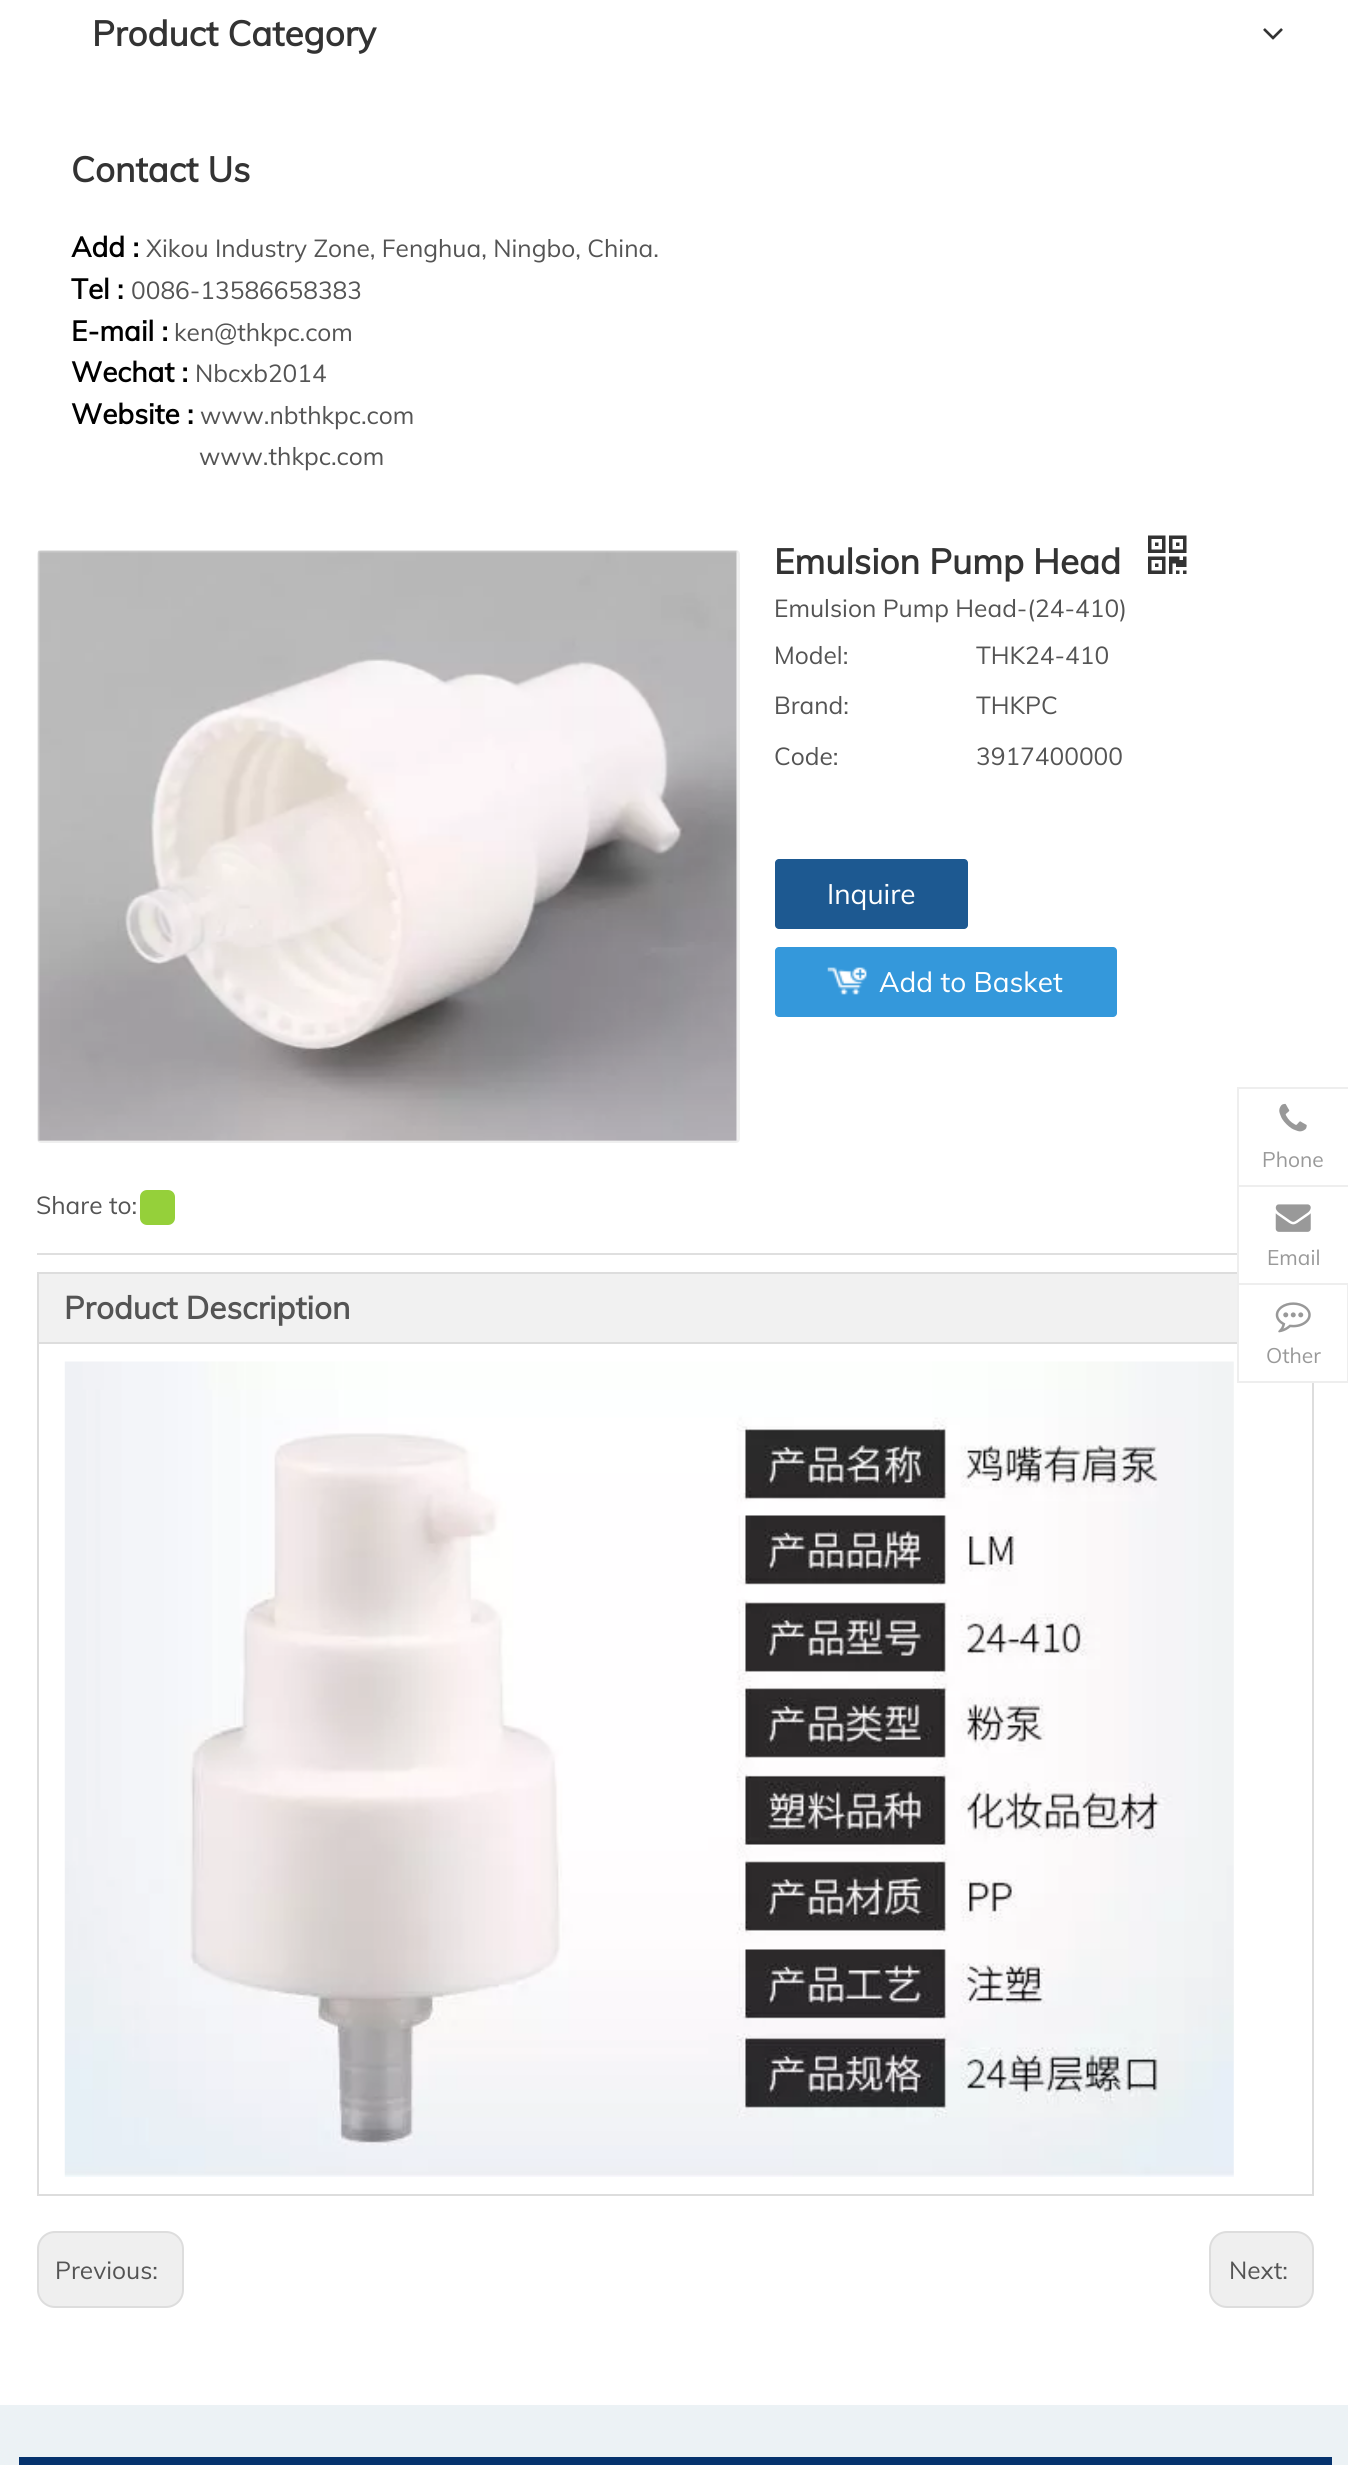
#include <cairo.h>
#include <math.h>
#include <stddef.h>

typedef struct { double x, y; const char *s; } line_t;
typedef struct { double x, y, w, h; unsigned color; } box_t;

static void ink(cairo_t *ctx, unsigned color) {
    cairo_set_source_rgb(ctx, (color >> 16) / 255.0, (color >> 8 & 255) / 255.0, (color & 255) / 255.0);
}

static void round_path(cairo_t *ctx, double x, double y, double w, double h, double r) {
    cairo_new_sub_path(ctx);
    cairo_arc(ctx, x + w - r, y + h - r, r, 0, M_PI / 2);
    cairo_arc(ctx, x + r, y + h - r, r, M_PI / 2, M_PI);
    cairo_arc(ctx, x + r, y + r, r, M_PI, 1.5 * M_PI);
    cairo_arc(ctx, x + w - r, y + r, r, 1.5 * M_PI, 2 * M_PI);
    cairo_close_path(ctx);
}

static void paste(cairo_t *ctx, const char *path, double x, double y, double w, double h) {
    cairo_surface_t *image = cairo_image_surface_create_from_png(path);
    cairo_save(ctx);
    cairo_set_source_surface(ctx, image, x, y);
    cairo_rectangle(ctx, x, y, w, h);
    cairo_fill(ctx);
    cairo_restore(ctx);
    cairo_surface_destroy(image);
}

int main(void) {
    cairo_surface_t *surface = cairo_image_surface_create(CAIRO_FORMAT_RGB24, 1348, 2465);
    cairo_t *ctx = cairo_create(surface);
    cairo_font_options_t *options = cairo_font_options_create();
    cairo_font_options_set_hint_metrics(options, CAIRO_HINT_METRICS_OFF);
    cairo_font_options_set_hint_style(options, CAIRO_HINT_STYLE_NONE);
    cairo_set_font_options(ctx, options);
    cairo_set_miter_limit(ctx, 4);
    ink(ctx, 0xFFFFFF);
    cairo_paint(ctx);
    cairo_select_font_face(ctx, "Muli", CAIRO_FONT_SLANT_NORMAL, CAIRO_FONT_WEIGHT_BOLD);
    cairo_set_font_size(ctx, 35);
    ink(ctx, 0x333333);
    cairo_move_to(ctx, 92, 46);
    cairo_show_text(ctx, "Product Category");
    paste(ctx, "media/1.png", 1263, 28, 20, 12);
    cairo_move_to(ctx, 71, 182);
    cairo_show_text(ctx, "Contact Us");
    cairo_set_font_size(ctx, 28);
    ink(ctx, 0x000000);
    cairo_move_to(ctx, 71, 257);
    cairo_show_text(ctx, "Add :");
    cairo_select_font_face(ctx, "Muli", CAIRO_FONT_SLANT_NORMAL, CAIRO_FONT_WEIGHT_NORMAL);
    cairo_set_font_size(ctx, 24.5);
    ink(ctx, 0x545454);
    cairo_move_to(ctx, 146, 257);
    cairo_show_text(ctx, "Xikou Industry Zone, Fenghua, Ningbo, China.");
    cairo_select_font_face(ctx, "Muli", CAIRO_FONT_SLANT_NORMAL, CAIRO_FONT_WEIGHT_BOLD);
    cairo_set_font_size(ctx, 28);
    ink(ctx, 0x000000);
    cairo_move_to(ctx, 71, 299);
    cairo_show_text(ctx, "Tel :");
    cairo_select_font_face(ctx, "Muli", CAIRO_FONT_SLANT_NORMAL, CAIRO_FONT_WEIGHT_NORMAL);
    cairo_set_font_size(ctx, 24.5);
    ink(ctx, 0x545454);
    cairo_move_to(ctx, 131, 299);
    cairo_show_text(ctx, "0086-13586658383");
    cairo_select_font_face(ctx, "Muli", CAIRO_FONT_SLANT_NORMAL, CAIRO_FONT_WEIGHT_BOLD);
    cairo_set_font_size(ctx, 28);
    ink(ctx, 0x000000);
    cairo_move_to(ctx, 71, 341);
    cairo_show_text(ctx, "E-mail :");
    cairo_select_font_face(ctx, "Muli", CAIRO_FONT_SLANT_NORMAL, CAIRO_FONT_WEIGHT_NORMAL);
    cairo_set_font_size(ctx, 24.5);
    ink(ctx, 0x545454);
    cairo_move_to(ctx, 174, 341);
    cairo_show_text(ctx, "ken@thkpc.com");
    cairo_select_font_face(ctx, "Muli", CAIRO_FONT_SLANT_NORMAL, CAIRO_FONT_WEIGHT_BOLD);
    cairo_set_font_size(ctx, 28);
    ink(ctx, 0x000000);
    cairo_move_to(ctx, 71, 382);
    cairo_show_text(ctx, "Wechat :");
    cairo_select_font_face(ctx, "Muli", CAIRO_FONT_SLANT_NORMAL, CAIRO_FONT_WEIGHT_NORMAL);
    cairo_set_font_size(ctx, 24.5);
    ink(ctx, 0x545454);
    cairo_move_to(ctx, 195, 382);
    cairo_show_text(ctx, "Nbcxb2014");
    cairo_select_font_face(ctx, "Muli", CAIRO_FONT_SLANT_NORMAL, CAIRO_FONT_WEIGHT_BOLD);
    cairo_set_font_size(ctx, 28);
    ink(ctx, 0x000000);
    cairo_move_to(ctx, 71, 424);
    cairo_show_text(ctx, "Website :");
    cairo_select_font_face(ctx, "Muli", CAIRO_FONT_SLANT_NORMAL, CAIRO_FONT_WEIGHT_NORMAL);
    cairo_set_font_size(ctx, 24.5);
    ink(ctx, 0x545454);
    cairo_move_to(ctx, 200, 424);
    cairo_show_text(ctx, "www.nbthkpc.com");
    cairo_move_to(ctx, 199, 465);
    cairo_show_text(ctx, "www.thkpc.com");
    cairo_select_font_face(ctx, "Muli", CAIRO_FONT_SLANT_NORMAL, CAIRO_FONT_WEIGHT_BOLD);
    cairo_set_font_size(ctx, 35);
    ink(ctx, 0x333333);
    cairo_move_to(ctx, 774, 574);
    cairo_show_text(ctx, "Emulsion Pump Head");
    paste(ctx, "media/2.png", 1148, 535, 39, 39);
    cairo_select_font_face(ctx, "Muli", CAIRO_FONT_SLANT_NORMAL, CAIRO_FONT_WEIGHT_NORMAL);
    cairo_set_font_size(ctx, 24.5);
    ink(ctx, 0x545454);
    {
        static const line_t items[] = {
            {774, 617, "Emulsion Pump Head-(24-410)"},
            {774, 664, "Model:"},
            {976, 664, "THK24-410"},
            {774, 714, "Brand:"},
            {976, 714, "THKPC"},
            {774, 765, "Code:"},
            {976, 765, "3917400000"},
        };
        for (size_t i = 0; i < sizeof items / sizeof *items; i++) {
            cairo_move_to(ctx, items[i].x, items[i].y);
            cairo_show_text(ctx, items[i].s);
        }
    }
    ink(ctx, 0x1D5991);
    round_path(ctx, 775, 859, 193, 70, 4);
    cairo_fill(ctx);
    cairo_set_font_size(ctx, 28);
    ink(ctx, 0xFFFFFF);
    cairo_move_to(ctx, 827, 904);
    cairo_show_text(ctx, "Inquire");
    ink(ctx, 0x3498DB);
    round_path(ctx, 775, 947, 342, 70, 4);
    cairo_fill(ctx);
    paste(ctx, "media/3.png", 827, 967, 40, 28);
    ink(ctx, 0xFFFFFF);
    cairo_move_to(ctx, 879, 992);
    cairo_show_text(ctx, "Add to Basket");
    round_path(ctx, 38, 551, 701, 591, 3);
    ink(ctx, 0xEFEFEF);
    cairo_stroke(ctx);
    paste(ctx, "media/4.png", 38, 550, 700, 591);
    cairo_set_font_size(ctx, 24.5);
    ink(ctx, 0x545454);
    cairo_move_to(ctx, 36, 1214);
    cairo_show_text(ctx, "Share to:");
    ink(ctx, 0x95D03A);
    round_path(ctx, 140, 1190, 35, 35, 7);
    cairo_fill(ctx);
    ink(ctx, 0xDFDFDF);
    cairo_rectangle(ctx, 37, 1253, 1200, 2);
    cairo_fill(ctx);
    cairo_rectangle(ctx, 38, 1273, 1275, 922);
    ink(ctx, 0xDDDDDD);
    cairo_stroke(ctx);
    ink(ctx, 0xF1F1F1);
    cairo_rectangle(ctx, 39, 1274, 1198, 68);
    cairo_fill(ctx);
    ink(ctx, 0xDDDDDD);
    cairo_rectangle(ctx, 39, 1342, 1198, 2);
    cairo_fill(ctx);
    cairo_select_font_face(ctx, "Muli", CAIRO_FONT_SLANT_NORMAL, CAIRO_FONT_WEIGHT_BOLD);
    cairo_set_font_size(ctx, 31.5);
    ink(ctx, 0x545454);
    cairo_move_to(ctx, 64, 1319);
    cairo_show_text(ctx, "Product Description");
    paste(ctx, "media/5.png", 64, 1361, 1170, 816);
    ink(ctx, 0xEFEFEF);
    round_path(ctx, 38, 2232, 145, 75, 17);
    cairo_fill_preserve(ctx);
    ink(ctx, 0xDDDDDD);
    cairo_stroke(ctx);
    cairo_select_font_face(ctx, "Muli", CAIRO_FONT_SLANT_NORMAL, CAIRO_FONT_WEIGHT_NORMAL);
    cairo_set_font_size(ctx, 24.5);
    ink(ctx, 0x545454);
    cairo_move_to(ctx, 55, 2279);
    cairo_show_text(ctx, "Previous:");
    ink(ctx, 0xEFEFEF);
    round_path(ctx, 1210, 2232, 103, 75, 17);
    cairo_fill_preserve(ctx);
    ink(ctx, 0xDDDDDD);
    cairo_stroke(ctx);
    ink(ctx, 0x545454);
    cairo_move_to(ctx, 1229, 2279);
    cairo_show_text(ctx, "Next:");
    ink(ctx, 0xEEEEEE);
    cairo_rectangle(ctx, 1237, 1087, 111, 2);
    cairo_fill(ctx);
    cairo_rectangle(ctx, 1237, 1087, 2, 98);
    cairo_fill(ctx);
    paste(ctx, "media/6.png", 1279, 1103, 28, 29);
    cairo_set_font_size(ctx, 21);
    ink(ctx, 0x999999);
    cairo_move_to(ctx, 1262, 1167);
    cairo_show_text(ctx, "Phone");
    {
        static const box_t items[] = {
            {1239, 1272, 75, 11, 0xFFFFFF},
            {1237, 1185, 111, 2, 0xEEEEEE},
            {1237, 1185, 2, 98, 0xEEEEEE},
        };
        for (size_t i = 0; i < sizeof items / sizeof *items; i++) {
            ink(ctx, items[i].color);
            cairo_rectangle(ctx, items[i].x, items[i].y, items[i].w, items[i].h);
            cairo_fill(ctx);
        }
    }
    paste(ctx, "media/7.png", 1275, 1204, 36, 28);
    ink(ctx, 0x999999);
    cairo_move_to(ctx, 1267, 1265);
    cairo_show_text(ctx, "Email");
    ink(ctx, 0xFFFFFF);
    cairo_rectangle(ctx, 1312, 1285, 2, 96);
    cairo_fill(ctx);
    cairo_rectangle(ctx, 1238, 1284, 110, 98);
    ink(ctx, 0xEEEEEE);
    cairo_stroke(ctx);
    paste(ctx, "media/8.png", 1275, 1302, 36, 31);
    ink(ctx, 0x999999);
    cairo_move_to(ctx, 1266, 1363);
    cairo_show_text(ctx, "Other");
    ink(ctx, 0xECF2F5);
    cairo_rectangle(ctx, 0, 2405, 1348, 60);
    cairo_fill(ctx);
    ink(ctx, 0x06336E);
    cairo_rectangle(ctx, 19, 2457, 1313, 8);
    cairo_fill(ctx);
    cairo_surface_write_to_png(surface, "image.png");
    cairo_font_options_destroy(options);
    cairo_destroy(ctx);
    cairo_surface_destroy(surface);
    return 0;
}
